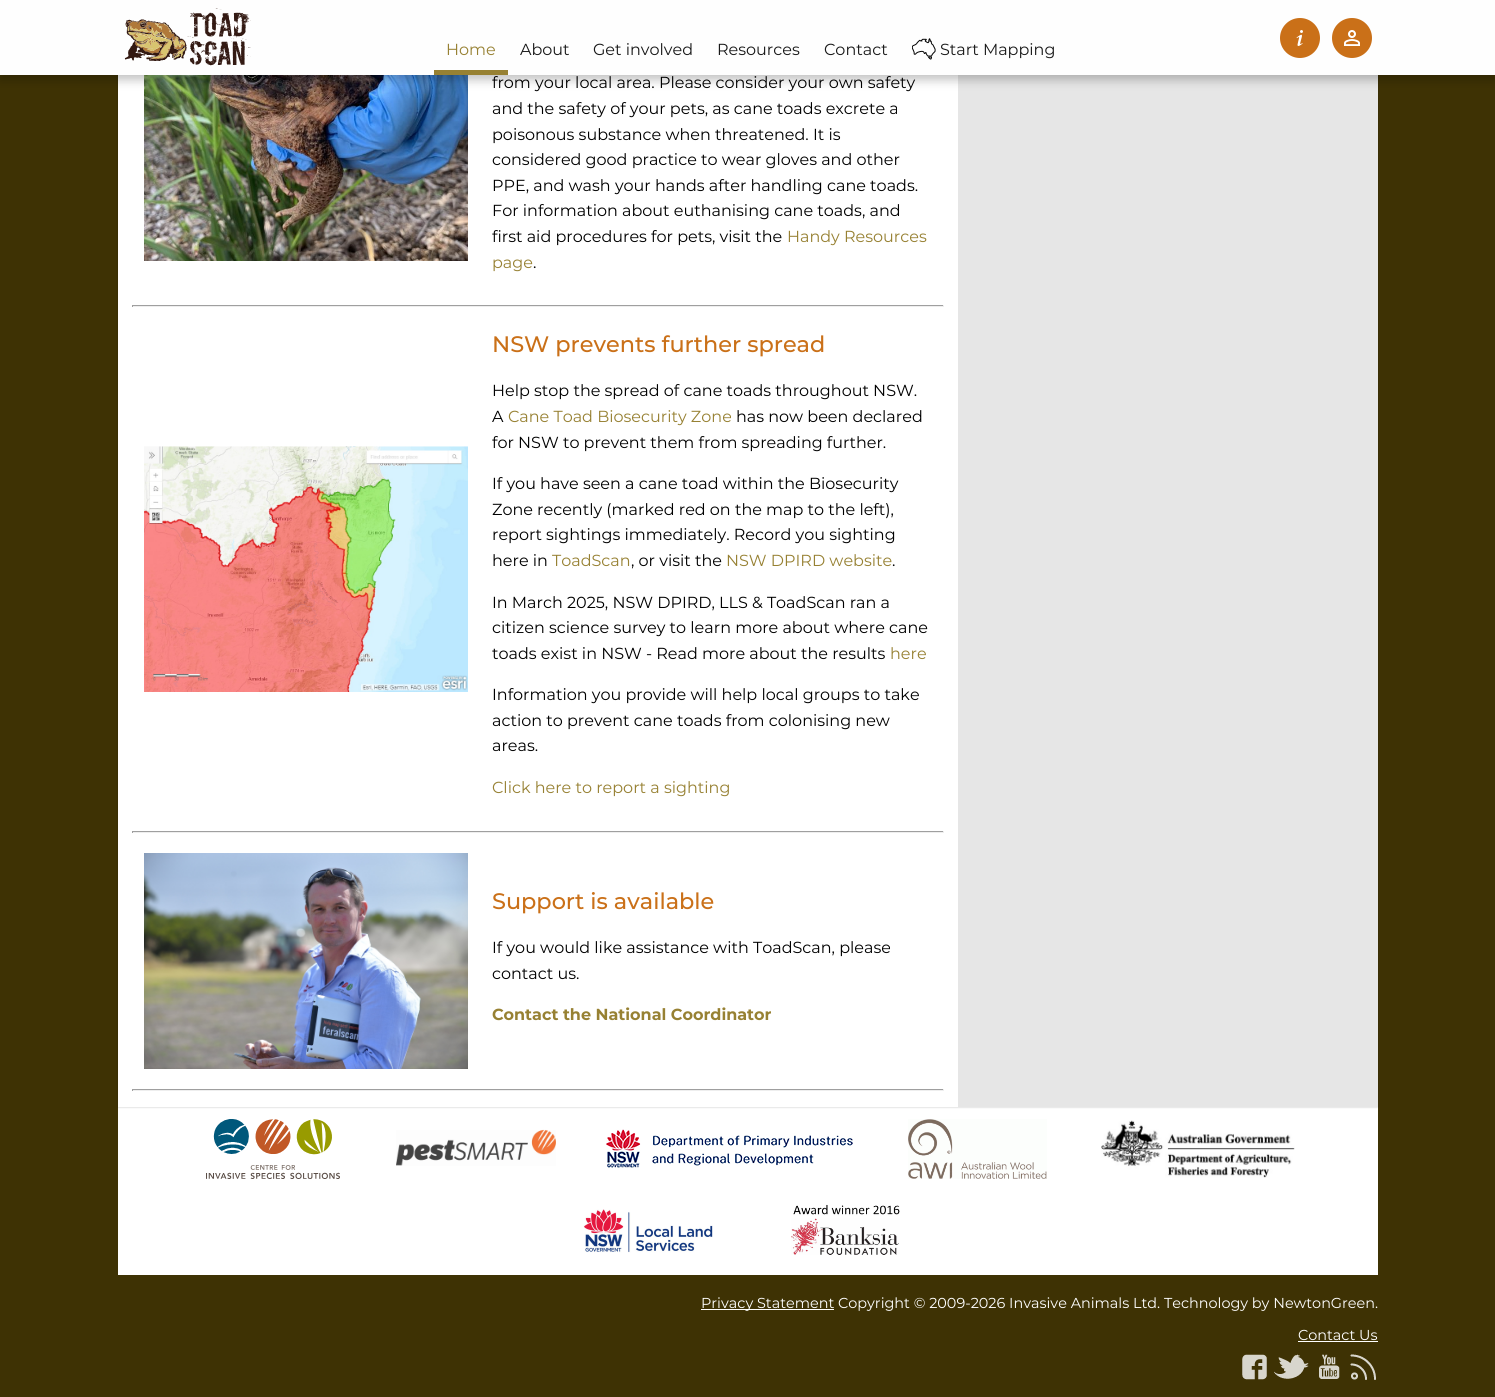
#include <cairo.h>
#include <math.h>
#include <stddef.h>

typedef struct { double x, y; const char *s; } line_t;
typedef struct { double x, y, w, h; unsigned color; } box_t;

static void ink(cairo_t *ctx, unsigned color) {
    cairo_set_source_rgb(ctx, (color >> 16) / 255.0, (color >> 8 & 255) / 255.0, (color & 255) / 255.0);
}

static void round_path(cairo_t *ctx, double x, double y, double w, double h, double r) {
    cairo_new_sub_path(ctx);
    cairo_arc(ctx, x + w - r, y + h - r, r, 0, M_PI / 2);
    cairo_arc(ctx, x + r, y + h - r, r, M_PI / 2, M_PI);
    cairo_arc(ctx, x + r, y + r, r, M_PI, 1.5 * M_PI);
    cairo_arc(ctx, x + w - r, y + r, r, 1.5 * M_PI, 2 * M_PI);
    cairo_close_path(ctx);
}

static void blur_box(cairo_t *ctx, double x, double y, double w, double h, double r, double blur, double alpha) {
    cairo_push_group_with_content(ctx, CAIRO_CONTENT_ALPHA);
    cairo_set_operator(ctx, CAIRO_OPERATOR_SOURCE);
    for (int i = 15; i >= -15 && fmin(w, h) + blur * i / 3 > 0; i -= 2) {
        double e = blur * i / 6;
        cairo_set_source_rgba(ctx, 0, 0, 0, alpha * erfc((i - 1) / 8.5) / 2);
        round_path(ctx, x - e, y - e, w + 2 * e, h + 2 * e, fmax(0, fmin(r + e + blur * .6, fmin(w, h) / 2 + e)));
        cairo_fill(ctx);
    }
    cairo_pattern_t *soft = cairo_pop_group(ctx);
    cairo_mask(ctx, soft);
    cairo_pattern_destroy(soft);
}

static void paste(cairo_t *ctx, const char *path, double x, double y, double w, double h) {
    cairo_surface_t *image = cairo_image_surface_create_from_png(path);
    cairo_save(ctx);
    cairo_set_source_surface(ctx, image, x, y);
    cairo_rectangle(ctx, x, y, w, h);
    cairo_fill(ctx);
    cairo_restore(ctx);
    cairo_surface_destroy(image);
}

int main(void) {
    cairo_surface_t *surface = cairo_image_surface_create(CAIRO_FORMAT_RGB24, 1495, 1397);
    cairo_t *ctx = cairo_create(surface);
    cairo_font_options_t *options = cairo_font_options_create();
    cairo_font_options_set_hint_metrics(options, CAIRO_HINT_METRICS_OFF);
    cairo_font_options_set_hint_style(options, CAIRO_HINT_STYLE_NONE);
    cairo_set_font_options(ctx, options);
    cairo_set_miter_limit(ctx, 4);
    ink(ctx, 0x3E3204);
    cairo_paint(ctx);
    ink(ctx, 0xFFFFFF);
    cairo_rectangle(ctx, 118, 1107, 1260, 168);
    cairo_fill(ctx);
    ink(ctx, 0x000000);
    blur_box(ctx, 118, -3, 1260, 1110, 0, 1, 0.24);
    ink(ctx, 0xFFFFFF);
    cairo_rectangle(ctx, 118, 75, 840, 1032);
    cairo_fill(ctx);
    paste(ctx, "media/5.png", 144, 75, 324, 186);
    ink(ctx, 0xE6E6E6);
    cairo_rectangle(ctx, 958, 75, 420, 1032);
    cairo_fill(ctx);
    ink(ctx, 0x000000);
    blur_box(ctx, 0, 5, 1495, 75, 0, 5, 0.24);
    ink(ctx, 0xFEFEFE);
    cairo_rectangle(ctx, 0, 0, 1495, 75);
    cairo_fill(ctx);
    paste(ctx, "media/1.png", 124, 8, 127, 58);
    ink(ctx, 0x978133);
    cairo_rectangle(ctx, 434, 70, 74, 5);
    cairo_fill(ctx);
    cairo_select_font_face(ctx, "Montserrat", CAIRO_FONT_SLANT_NORMAL, CAIRO_FONT_WEIGHT_NORMAL);
    cairo_set_font_size(ctx, 16);
    cairo_move_to(ctx, 446, 55);
    cairo_show_text(ctx, "Home");
    ink(ctx, 0x191919);
    {
        static const line_t items[] = {
            {520, 55, "About"},
            {593, 55, "Get involved"},
            {717, 55, "Resources"},
            {824, 55, "Contact"},
        };
        for (size_t i = 0; i < sizeof items / sizeof *items; i++) {
            cairo_move_to(ctx, items[i].x, items[i].y);
            cairo_show_text(ctx, items[i].s);
        }
    }
    paste(ctx, "media/2.png", 912, 38, 24, 22);
    cairo_move_to(ctx, 940, 55);
    cairo_show_text(ctx, "Start Mapping");
    ink(ctx, 0xCA7018);
    cairo_new_path(ctx);
    cairo_arc(ctx, 1300, 38, 20, 0, 2 * M_PI);
    cairo_fill(ctx);
    paste(ctx, "media/3.png", 1296, 30, 7, 16);
    cairo_arc(ctx, 1352, 38, 20, 0, 2 * M_PI);
    cairo_fill(ctx);
    paste(ctx, "media/4.png", 1344, 30, 16, 16);
    ink(ctx, 0x000000);
    {
        static const line_t items[] = {
            {492, 88, "from your local area. Please consider your own safety"},
            {492, 114, "and the safety of your pets, as cane toads excrete a"},
            {492, 140, "poisonous substance when threatened. It is"},
            {492, 165, "considered good practice to wear gloves and other"},
            {492, 191, "PPE, and wash your hands after handling cane toads."},
            {492, 216, "For information about euthanising cane toads, and"},
            {492, 242, "first aid procedures for pets, visit the"},
        };
        for (size_t i = 0; i < sizeof items / sizeof *items; i++) {
            cairo_move_to(ctx, items[i].x, items[i].y);
            cairo_show_text(ctx, items[i].s);
        }
    }
    ink(ctx, 0x978133);
    cairo_move_to(ctx, 787, 242);
    cairo_show_text(ctx, "Handy Resources");
    cairo_move_to(ctx, 492, 268);
    cairo_show_text(ctx, "page");
    ink(ctx, 0x000000);
    cairo_move_to(ctx, 533, 268);
    cairo_show_text(ctx, ".");
    {
        static const box_t items[] = {
            {132, 305, 812, 1, 0x9F9F9F},
            {943, 305, 1, 2, 0xEEEEEE},
            {132, 306, 812, 1, 0xEEEEEE},
            {132, 305, 1, 2, 0x9F9F9F},
        };
        for (size_t i = 0; i < sizeof items / sizeof *items; i++) {
            ink(ctx, items[i].color);
            cairo_rectangle(ctx, items[i].x, items[i].y, items[i].w, items[i].h);
            cairo_fill(ctx);
        }
    }
    paste(ctx, "media/6.png", 144, 446, 324, 246);
    cairo_select_font_face(ctx, "Montserrat Medium", CAIRO_FONT_SLANT_NORMAL, CAIRO_FONT_WEIGHT_NORMAL);
    cairo_set_font_size(ctx, 22.4);
    ink(ctx, 0xCA7018);
    cairo_move_to(ctx, 492, 352);
    cairo_show_text(ctx, "NSW prevents further spread");
    cairo_select_font_face(ctx, "Montserrat", CAIRO_FONT_SLANT_NORMAL, CAIRO_FONT_WEIGHT_NORMAL);
    cairo_set_font_size(ctx, 16);
    ink(ctx, 0x000000);
    cairo_move_to(ctx, 492, 396);
    cairo_show_text(ctx, "Help stop the spread of cane toads throughout NSW.");
    cairo_move_to(ctx, 492, 422);
    cairo_show_text(ctx, "A");
    ink(ctx, 0x978133);
    cairo_move_to(ctx, 508, 422);
    cairo_show_text(ctx, "Cane Toad Biosecurity Zone");
    ink(ctx, 0x000000);
    {
        static const line_t items[] = {
            {736, 422, "has now been declared"},
            {492, 448, "for NSW to prevent them from spreading further."},
            {492, 489, "If you have seen a cane toad within the Biosecurity"},
            {492, 515, "Zone recently (marked red on the map to the left),"},
            {492, 540, "report sightings immediately. Record you sighting"},
            {492, 566, "here in"},
        };
        for (size_t i = 0; i < sizeof items / sizeof *items; i++) {
            cairo_move_to(ctx, items[i].x, items[i].y);
            cairo_show_text(ctx, items[i].s);
        }
    }
    ink(ctx, 0x978133);
    cairo_move_to(ctx, 552, 566);
    cairo_show_text(ctx, "ToadScan");
    ink(ctx, 0x000000);
    cairo_move_to(ctx, 631, 566);
    cairo_show_text(ctx, ", or visit the");
    ink(ctx, 0x978133);
    cairo_move_to(ctx, 726, 566);
    cairo_show_text(ctx, "NSW DPIRD website");
    ink(ctx, 0x000000);
    {
        static const line_t items[] = {
            {892, 566, "."},
            {492, 608, "In March 2025, NSW DPIRD, LLS & ToadScan ran a"},
            {492, 633, "citizen science survey to learn more about where cane"},
            {492, 659, "toads exist in NSW - Read more about the results"},
        };
        for (size_t i = 0; i < sizeof items / sizeof *items; i++) {
            cairo_move_to(ctx, items[i].x, items[i].y);
            cairo_show_text(ctx, items[i].s);
        }
    }
    ink(ctx, 0x978133);
    cairo_move_to(ctx, 890, 659);
    cairo_show_text(ctx, "here");
    ink(ctx, 0x000000);
    {
        static const line_t items[] = {
            {492, 700, "Information you provide will help local groups to take"},
            {492, 726, "action to prevent cane toads from colonising new"},
            {492, 751, "areas."},
        };
        for (size_t i = 0; i < sizeof items / sizeof *items; i++) {
            cairo_move_to(ctx, items[i].x, items[i].y);
            cairo_show_text(ctx, items[i].s);
        }
    }
    ink(ctx, 0x978133);
    cairo_move_to(ctx, 492, 793);
    cairo_show_text(ctx, "Click here to report a sighting");
    {
        static const box_t items[] = {
            {132, 831, 812, 1, 0x9F9F9F},
            {943, 831, 1, 2, 0xEEEEEE},
            {132, 832, 812, 1, 0xEEEEEE},
            {132, 831, 1, 2, 0x9F9F9F},
        };
        for (size_t i = 0; i < sizeof items / sizeof *items; i++) {
            ink(ctx, items[i].color);
            cairo_rectangle(ctx, items[i].x, items[i].y, items[i].w, items[i].h);
            cairo_fill(ctx);
        }
    }
    paste(ctx, "media/7.png", 144, 853, 324, 216);
    cairo_select_font_face(ctx, "Montserrat Medium", CAIRO_FONT_SLANT_NORMAL, CAIRO_FONT_WEIGHT_NORMAL);
    cairo_set_font_size(ctx, 22.4);
    ink(ctx, 0xCA7018);
    cairo_move_to(ctx, 492, 909);
    cairo_show_text(ctx, "Support is available");
    cairo_select_font_face(ctx, "Montserrat", CAIRO_FONT_SLANT_NORMAL, CAIRO_FONT_WEIGHT_NORMAL);
    cairo_set_font_size(ctx, 16);
    ink(ctx, 0x000000);
    cairo_move_to(ctx, 492, 953);
    cairo_show_text(ctx, "If you would like assistance with ToadScan, please");
    cairo_move_to(ctx, 492, 979);
    cairo_show_text(ctx, "contact us.");
    cairo_select_font_face(ctx, "Montserrat", CAIRO_FONT_SLANT_NORMAL, CAIRO_FONT_WEIGHT_BOLD);
    ink(ctx, 0x978133);
    cairo_move_to(ctx, 492, 1020);
    cairo_show_text(ctx, "Contact the National Coordinator");
    {
        static const box_t items[] = {
            {132, 1089, 812, 1, 0x9F9F9F},
            {943, 1089, 1, 2, 0xEEEEEE},
            {132, 1090, 812, 1, 0xEEEEEE},
            {132, 1089, 1, 2, 0x9F9F9F},
        };
        for (size_t i = 0; i < sizeof items / sizeof *items; i++) {
            ink(ctx, items[i].color);
            cairo_rectangle(ctx, items[i].x, items[i].y, items[i].w, items[i].h);
            cairo_fill(ctx);
        }
    }
    paste(ctx, "media/8.png", 206, 1119, 134, 60);
    paste(ctx, "media/9.png", 396, 1129, 160, 37);
    paste(ctx, "media/10.png", 606, 1129, 247, 39);
    paste(ctx, "media/11.png", 908, 1119, 139, 60);
    paste(ctx, "media/12.png", 1101, 1120, 194, 58);
    paste(ctx, "media/13.png", 583, 1209, 130, 44);
    paste(ctx, "media/14.png", 791, 1204, 109, 51);
    ink(ctx, 0xFFFFFF);
    cairo_rectangle(ctx, 701, 1309, 133, 1);
    cairo_fill(ctx);
    cairo_select_font_face(ctx, "Montserrat", CAIRO_FONT_SLANT_NORMAL, CAIRO_FONT_WEIGHT_NORMAL);
    cairo_set_font_size(ctx, 14.4);
    cairo_move_to(ctx, 701, 1308);
    cairo_show_text(ctx, "Privacy Statement Copyright © 2009-2026 Invasive Animals Ltd. Technology by NewtonGreen.");
    cairo_move_to(ctx, 1298, 1340);
    cairo_show_text(ctx, "Contact Us");
    cairo_rectangle(ctx, 1298, 1341, 80, 1);
    cairo_fill(ctx);
    paste(ctx, "media/15.png", 1242, 1354, 25, 26);
    paste(ctx, "media/16.png", 1274, 1354, 35, 25);
    paste(ctx, "media/17.png", 1319, 1354, 21, 25);
    paste(ctx, "media/18.png", 1350, 1354, 26, 26);
    cairo_surface_write_to_png(surface, "image.png");
    cairo_font_options_destroy(options);
    cairo_destroy(ctx);
    cairo_surface_destroy(surface);
    return 0;
}
